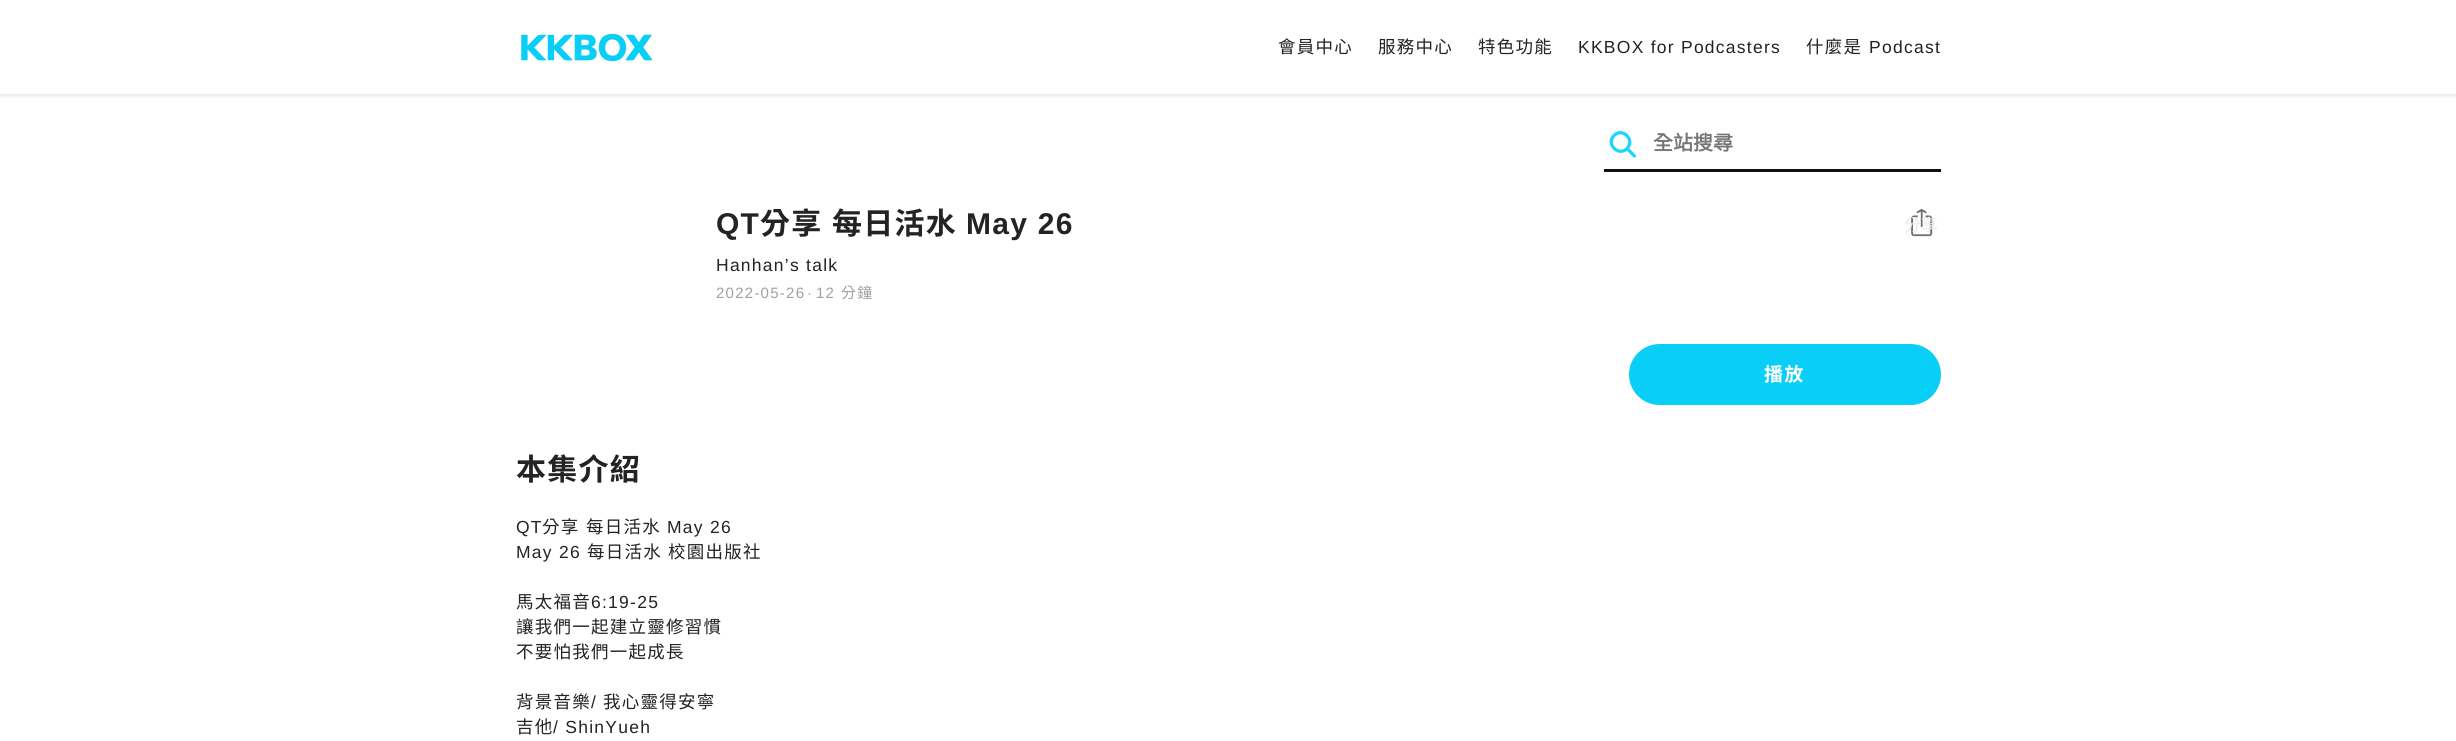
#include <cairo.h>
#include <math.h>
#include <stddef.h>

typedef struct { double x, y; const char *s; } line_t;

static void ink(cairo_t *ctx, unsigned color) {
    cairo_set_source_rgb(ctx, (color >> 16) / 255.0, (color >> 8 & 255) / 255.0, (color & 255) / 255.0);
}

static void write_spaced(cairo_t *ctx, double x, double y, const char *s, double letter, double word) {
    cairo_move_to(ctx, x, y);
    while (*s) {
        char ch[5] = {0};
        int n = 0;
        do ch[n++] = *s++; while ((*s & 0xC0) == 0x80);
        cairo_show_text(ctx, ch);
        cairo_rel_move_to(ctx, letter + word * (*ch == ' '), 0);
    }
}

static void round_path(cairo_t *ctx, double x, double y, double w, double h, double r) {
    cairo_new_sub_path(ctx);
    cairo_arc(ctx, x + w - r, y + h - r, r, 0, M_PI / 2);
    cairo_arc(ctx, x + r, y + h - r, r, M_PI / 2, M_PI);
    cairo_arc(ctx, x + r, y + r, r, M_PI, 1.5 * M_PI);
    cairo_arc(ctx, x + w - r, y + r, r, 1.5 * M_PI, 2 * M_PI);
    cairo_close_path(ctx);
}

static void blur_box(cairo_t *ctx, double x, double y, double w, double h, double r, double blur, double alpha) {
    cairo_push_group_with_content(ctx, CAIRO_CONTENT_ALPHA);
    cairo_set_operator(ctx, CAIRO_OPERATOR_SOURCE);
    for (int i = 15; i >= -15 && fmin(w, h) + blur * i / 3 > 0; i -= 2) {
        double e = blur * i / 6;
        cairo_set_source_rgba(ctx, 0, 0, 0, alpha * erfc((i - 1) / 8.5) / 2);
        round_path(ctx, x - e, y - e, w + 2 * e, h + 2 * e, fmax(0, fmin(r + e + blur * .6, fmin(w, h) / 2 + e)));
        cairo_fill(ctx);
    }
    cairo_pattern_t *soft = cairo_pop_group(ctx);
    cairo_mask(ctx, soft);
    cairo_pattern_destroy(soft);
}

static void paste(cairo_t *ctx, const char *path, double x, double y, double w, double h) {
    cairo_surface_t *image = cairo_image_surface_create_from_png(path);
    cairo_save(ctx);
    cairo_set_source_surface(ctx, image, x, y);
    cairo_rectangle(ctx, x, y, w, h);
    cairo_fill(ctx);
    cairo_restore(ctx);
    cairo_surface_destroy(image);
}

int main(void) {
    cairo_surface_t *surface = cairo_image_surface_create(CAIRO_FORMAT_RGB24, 2456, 741);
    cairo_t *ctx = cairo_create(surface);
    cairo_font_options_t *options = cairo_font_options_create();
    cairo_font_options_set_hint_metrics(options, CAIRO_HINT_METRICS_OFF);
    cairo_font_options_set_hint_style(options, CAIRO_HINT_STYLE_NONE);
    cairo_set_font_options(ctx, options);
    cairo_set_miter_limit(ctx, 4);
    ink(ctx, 0xFFFFFF);
    cairo_paint(ctx);
    cairo_save(ctx);
    cairo_set_fill_rule(ctx, CAIRO_FILL_RULE_EVEN_ODD);
    cairo_new_path(ctx);
    cairo_move_to(ctx, 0, 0);
    cairo_line_to(ctx, 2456, 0);
    cairo_line_to(ctx, 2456, 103);
    cairo_line_to(ctx, 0, 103);
    cairo_close_path(ctx);
    cairo_move_to(ctx, 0, 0);
    cairo_line_to(ctx, 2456, 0);
    cairo_line_to(ctx, 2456, 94);
    cairo_line_to(ctx, 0, 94);
    cairo_close_path(ctx);
    cairo_clip(ctx);
    ink(ctx, 0x000000);
    blur_box(ctx, 0, 3, 2456, 93, 0, 2, 0.1);
    cairo_restore(ctx);
    paste(ctx, "media/1.png", 521, 34, 132, 27);
    cairo_select_font_face(ctx, "Noto Sans CJK TC", CAIRO_FONT_SLANT_NORMAL, CAIRO_FONT_WEIGHT_NORMAL);
    cairo_set_font_size(ctx, 17.5);
    ink(ctx, 0x232323);
    {
        static const line_t items[] = {
            {1278, 53, "會員中心"},
            {1378, 53, "服務中心"},
            {1478, 53, "特色功能"},
        };
        for (size_t i = 0; i < sizeof items / sizeof *items; i++) {
            write_spaced(ctx, items[i].x, items[i].y, items[i].s, 1.25, 0);
        }
    }
    cairo_select_font_face(ctx, "Liberation Sans", CAIRO_FONT_SLANT_NORMAL, CAIRO_FONT_WEIGHT_NORMAL);
    write_spaced(ctx, 1578, 53, "KKBOX for Podcasters", 1.25, 0);
    cairo_select_font_face(ctx, "Noto Sans CJK TC", CAIRO_FONT_SLANT_NORMAL, CAIRO_FONT_WEIGHT_NORMAL);
    write_spaced(ctx, 1806, 53, "什麼是", 1.25, 0);
    cairo_select_font_face(ctx, "Liberation Sans", CAIRO_FONT_SLANT_NORMAL, CAIRO_FONT_WEIGHT_NORMAL);
    write_spaced(ctx, 1869, 53, "Podcast", 1.25, 0);
    ink(ctx, 0x111111);
    cairo_rectangle(ctx, 1604, 169, 337, 3);
    cairo_fill(ctx);
    cairo_new_path(ctx);
    cairo_move_to(ctx, 1614, 135.5);
    cairo_curve_to(ctx, 1622.5, 127, 1635.5, 140, 1627, 148.5);
    cairo_curve_to(ctx, 1618.5, 157, 1605.5, 144, 1614, 135.5);
    cairo_close_path(ctx);
    cairo_move_to(ctx, 1627.5, 149);
    cairo_line_to(ctx, 1634.5, 156);
    ink(ctx, 0x1DD6FF);
    cairo_set_line_width(ctx, 3.3);
    cairo_set_line_cap(ctx, CAIRO_LINE_CAP_ROUND);
    cairo_set_line_join(ctx, CAIRO_LINE_JOIN_ROUND);
    cairo_stroke(ctx);
    cairo_select_font_face(ctx, "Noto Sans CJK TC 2", CAIRO_FONT_SLANT_NORMAL, CAIRO_FONT_WEIGHT_BOLD);
    cairo_set_font_size(ctx, 20);
    ink(ctx, 0x757575);
    cairo_move_to(ctx, 1653, 150);
    cairo_show_text(ctx, "全站搜尋");
    cairo_select_font_face(ctx, "Liberation Sans", CAIRO_FONT_SLANT_NORMAL, CAIRO_FONT_WEIGHT_BOLD);
    cairo_set_font_size(ctx, 30);
    ink(ctx, 0x232323);
    write_spaced(ctx, 716, 234, "QT", 1.25, 0);
    cairo_select_font_face(ctx, "Noto Sans CJK TC", CAIRO_FONT_SLANT_NORMAL, CAIRO_FONT_WEIGHT_BOLD);
    write_spaced(ctx, 760, 234, "分享", 1.25, 0);
    write_spaced(ctx, 832, 234, "每日活水", 1.25, 0);
    cairo_select_font_face(ctx, "Liberation Sans", CAIRO_FONT_SLANT_NORMAL, CAIRO_FONT_WEIGHT_BOLD);
    write_spaced(ctx, 966, 234, "May 26", 1.25, 0);
    cairo_select_font_face(ctx, "Liberation Sans", CAIRO_FONT_SLANT_NORMAL, CAIRO_FONT_WEIGHT_NORMAL);
    cairo_set_font_size(ctx, 17.5);
    write_spaced(ctx, 716, 271, "Hanhan’s talk", 1.25, 0);
    cairo_set_font_size(ctx, 15);
    ink(ctx, 0xA0A0A0);
    {
        static const line_t items[] = {
            {716, 298, "2022-05-26"},
            {807, 298, "·"},
            {816, 298, "12"},
        };
        for (size_t i = 0; i < sizeof items / sizeof *items; i++) {
            write_spaced(ctx, items[i].x, items[i].y, items[i].s, 1.25, 0);
        }
    }
    cairo_select_font_face(ctx, "Noto Sans CJK TC", CAIRO_FONT_SLANT_NORMAL, CAIRO_FONT_WEIGHT_NORMAL);
    write_spaced(ctx, 841, 298, "分鐘", 1.25, 0);
    paste(ctx, "media/2.png", 1911, 208, 22, 29);
    cairo_set_font_size(ctx, 17);
    ink(ctx, 0xEAEAEA);
    cairo_move_to(ctx, 1904, 231);
    cairo_show_text(ctx, "分享");
    ink(ctx, 0x09CEF6);
    round_path(ctx, 1629, 344, 312, 61, 30.5);
    cairo_fill(ctx);
    cairo_select_font_face(ctx, "Noto Sans CJK TC", CAIRO_FONT_SLANT_NORMAL, CAIRO_FONT_WEIGHT_BOLD);
    cairo_set_font_size(ctx, 19);
    ink(ctx, 0xFFFFFF);
    write_spaced(ctx, 1764, 381, "播放", 1.25, 0);
    cairo_set_font_size(ctx, 30);
    ink(ctx, 0x232323);
    write_spaced(ctx, 516, 480, "本集介紹", 1.25, 0);
    cairo_select_font_face(ctx, "Liberation Sans", CAIRO_FONT_SLANT_NORMAL, CAIRO_FONT_WEIGHT_NORMAL);
    cairo_set_font_size(ctx, 17.5);
    write_spaced(ctx, 516, 533, "QT", 1.25, 0);
    cairo_select_font_face(ctx, "Noto Sans CJK TC", CAIRO_FONT_SLANT_NORMAL, CAIRO_FONT_WEIGHT_NORMAL);
    write_spaced(ctx, 542, 533, "分享", 1.25, 0);
    write_spaced(ctx, 586, 533, "每日活水", 1.25, 0);
    cairo_select_font_face(ctx, "Liberation Sans", CAIRO_FONT_SLANT_NORMAL, CAIRO_FONT_WEIGHT_NORMAL);
    write_spaced(ctx, 667, 533, "May 26", 1.25, 0);
    write_spaced(ctx, 516, 558, "May 26", 1.25, 0);
    cairo_select_font_face(ctx, "Noto Sans CJK TC", CAIRO_FONT_SLANT_NORMAL, CAIRO_FONT_WEIGHT_NORMAL);
    {
        static const line_t items[] = {
            {587, 558, "每日活水"},
            {668, 558, "校園出版社"},
            {516, 608, "馬太福音"},
        };
        for (size_t i = 0; i < sizeof items / sizeof *items; i++) {
            write_spaced(ctx, items[i].x, items[i].y, items[i].s, 1.25, 0);
        }
    }
    cairo_select_font_face(ctx, "Liberation Sans", CAIRO_FONT_SLANT_NORMAL, CAIRO_FONT_WEIGHT_NORMAL);
    write_spaced(ctx, 591, 608, "6:19-25", 1.25, 0);
    cairo_select_font_face(ctx, "Noto Sans CJK TC", CAIRO_FONT_SLANT_NORMAL, CAIRO_FONT_WEIGHT_NORMAL);
    {
        static const line_t items[] = {
            {516, 633, "讓我們一起建立靈修習慣"},
            {516, 658, "不要怕我們一起成長"},
            {516, 708, "背景音樂"},
        };
        for (size_t i = 0; i < sizeof items / sizeof *items; i++) {
            write_spaced(ctx, items[i].x, items[i].y, items[i].s, 1.25, 0);
        }
    }
    cairo_select_font_face(ctx, "Liberation Sans", CAIRO_FONT_SLANT_NORMAL, CAIRO_FONT_WEIGHT_NORMAL);
    write_spaced(ctx, 591, 708, "/", 1.25, 0);
    cairo_select_font_face(ctx, "Noto Sans CJK TC", CAIRO_FONT_SLANT_NORMAL, CAIRO_FONT_WEIGHT_NORMAL);
    write_spaced(ctx, 603, 708, "我心靈得安寧", 1.25, 0);
    write_spaced(ctx, 516, 733, "吉他", 1.25, 0);
    cairo_select_font_face(ctx, "Liberation Sans", CAIRO_FONT_SLANT_NORMAL, CAIRO_FONT_WEIGHT_NORMAL);
    write_spaced(ctx, 553, 733, "/ ShinYueh", 1.25, 0);
    cairo_surface_write_to_png(surface, "image.png");
    cairo_font_options_destroy(options);
    cairo_destroy(ctx);
    cairo_surface_destroy(surface);
    return 0;
}
